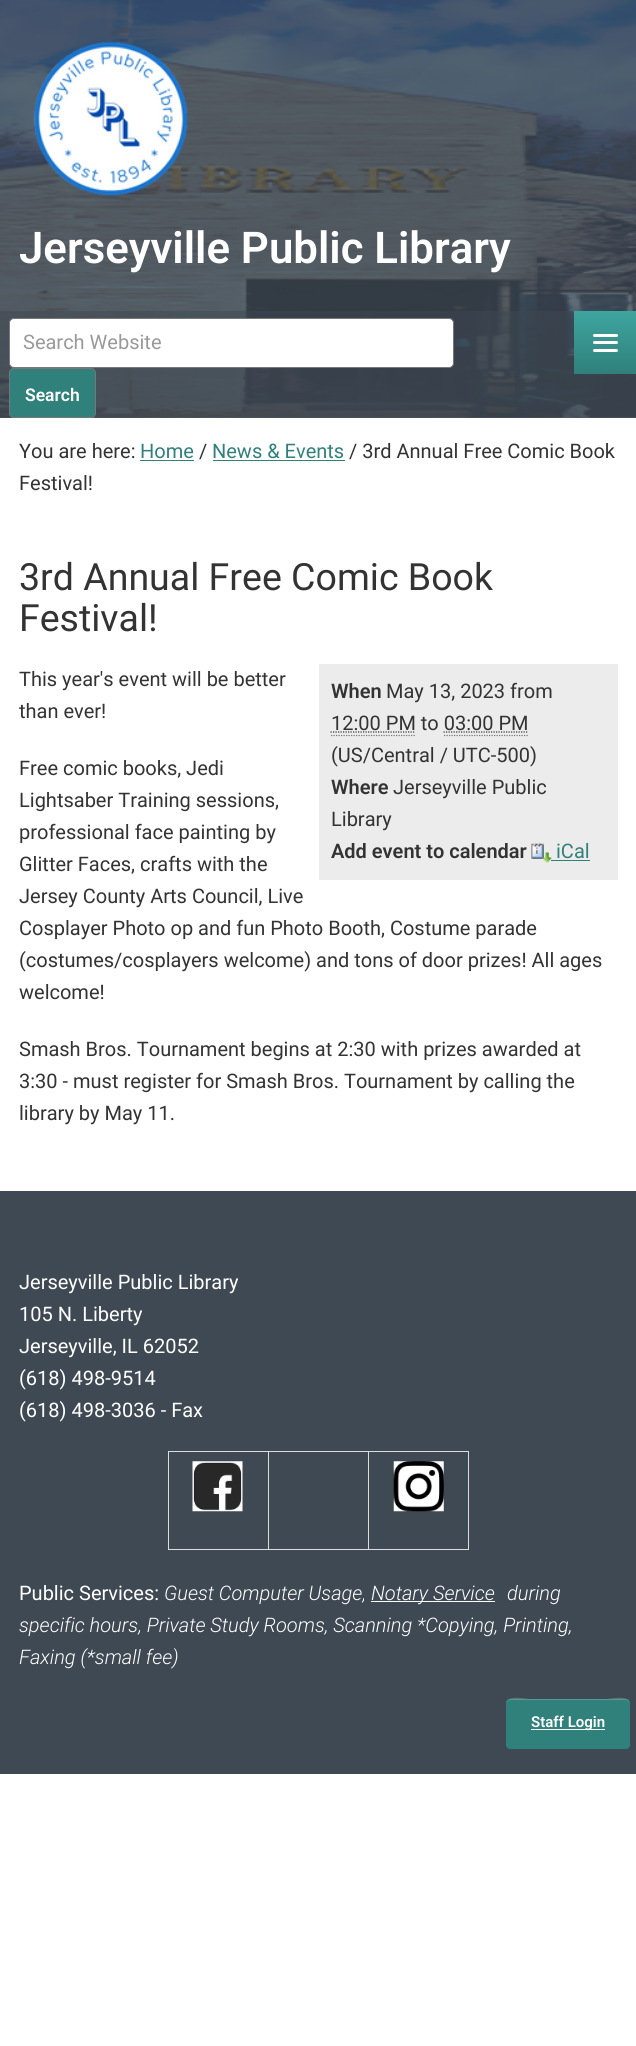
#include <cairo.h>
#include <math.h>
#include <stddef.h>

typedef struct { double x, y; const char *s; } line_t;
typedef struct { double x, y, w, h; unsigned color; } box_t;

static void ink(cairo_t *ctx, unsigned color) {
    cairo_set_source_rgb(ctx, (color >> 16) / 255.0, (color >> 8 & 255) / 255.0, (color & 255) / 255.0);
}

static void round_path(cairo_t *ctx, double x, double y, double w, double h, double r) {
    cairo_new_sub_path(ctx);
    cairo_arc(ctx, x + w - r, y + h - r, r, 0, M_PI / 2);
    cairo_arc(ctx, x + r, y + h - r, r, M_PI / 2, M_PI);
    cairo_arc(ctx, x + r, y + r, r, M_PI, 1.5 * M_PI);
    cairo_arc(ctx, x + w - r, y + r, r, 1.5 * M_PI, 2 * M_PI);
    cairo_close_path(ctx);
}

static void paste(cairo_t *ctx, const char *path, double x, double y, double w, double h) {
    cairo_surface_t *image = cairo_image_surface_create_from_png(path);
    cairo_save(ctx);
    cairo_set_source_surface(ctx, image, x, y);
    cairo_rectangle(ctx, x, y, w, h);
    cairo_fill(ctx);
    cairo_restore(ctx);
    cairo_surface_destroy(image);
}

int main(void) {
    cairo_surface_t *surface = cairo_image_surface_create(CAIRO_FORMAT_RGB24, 636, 2046);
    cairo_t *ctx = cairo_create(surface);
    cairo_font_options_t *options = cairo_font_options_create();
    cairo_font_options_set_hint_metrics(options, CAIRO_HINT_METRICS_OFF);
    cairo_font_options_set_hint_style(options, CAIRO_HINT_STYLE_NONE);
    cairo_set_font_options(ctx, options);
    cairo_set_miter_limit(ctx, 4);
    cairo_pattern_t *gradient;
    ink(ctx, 0xFFFFFF);
    cairo_paint(ctx);
    paste(ctx, "media/1.png", 0, 0, 636, 418);
    cairo_set_source_rgba(ctx, 0.247, 0.286, 0.325, 0.8);
    cairo_rectangle(ctx, 0, 0, 636, 311);
    cairo_fill(ctx);
    paste(ctx, "media/2.png", 33, 41, 155, 155);
    cairo_select_font_face(ctx, "Roboto SemiBold", CAIRO_FONT_SLANT_NORMAL, CAIRO_FONT_WEIGHT_NORMAL);
    cairo_set_font_size(ctx, 43.75);
    ink(ctx, 0xFFFFFF);
    cairo_move_to(ctx, 19, 263);
    cairo_show_text(ctx, "Jerseyville Public Library");
    cairo_set_source_rgba(ctx, 0.247, 0.286, 0.325, 0.9);
    cairo_rectangle(ctx, 0, 311, 636, 107);
    cairo_fill(ctx);
    ink(ctx, 0xFFFFFF);
    round_path(ctx, 9.5, 318.5, 444, 49, 4.5);
    cairo_fill_preserve(ctx);
    ink(ctx, 0x777777);
    cairo_set_line_width(ctx, 1);
    cairo_stroke(ctx);
    cairo_select_font_face(ctx, "Roboto", CAIRO_FONT_SLANT_NORMAL, CAIRO_FONT_WEIGHT_NORMAL);
    cairo_set_font_size(ctx, 20);
    ink(ctx, 0x999999);
    cairo_move_to(ctx, 23, 349);
    cairo_show_text(ctx, "Search Website");
    ink(ctx, 0x30807B);
    round_path(ctx, 9.5, 368.5, 86, 49, 4.5);
    cairo_fill_preserve(ctx);
    ink(ctx, 0x777777);
    cairo_stroke(ctx);
    cairo_select_font_face(ctx, "Roboto SemiBold", CAIRO_FONT_SLANT_NORMAL, CAIRO_FONT_WEIGHT_NORMAL);
    cairo_set_font_size(ctx, 17.5);
    ink(ctx, 0xFFFFFF);
    cairo_move_to(ctx, 25, 401);
    cairo_show_text(ctx, "Search");
    gradient = cairo_pattern_create_linear(605, 311, 605, 374);
    cairo_pattern_add_color_stop_rgba(gradient, 0, 0.243, 0.647, 0.624, 1);
    cairo_pattern_add_color_stop_rgba(gradient, 1, 0.188, 0.502, 0.482, 1);
    cairo_set_source(ctx, gradient);
    cairo_pattern_destroy(gradient);
    cairo_rectangle(ctx, 574, 311, 62, 63);
    cairo_fill(ctx);
    ink(ctx, 0xFFFFFF);
    round_path(ctx, 593, 334, 25, 3, 1.5);
    cairo_fill(ctx);
    round_path(ctx, 593, 341, 25, 3, 1.5);
    cairo_fill(ctx);
    round_path(ctx, 593, 349, 25, 3, 1.5);
    cairo_fill(ctx);
    cairo_select_font_face(ctx, "Roboto", CAIRO_FONT_SLANT_NORMAL, CAIRO_FONT_WEIGHT_NORMAL);
    cairo_set_font_size(ctx, 20);
    ink(ctx, 0x333333);
    cairo_move_to(ctx, 19, 458);
    cairo_show_text(ctx, "You are here:");
    ink(ctx, 0x30807B);
    cairo_move_to(ctx, 140, 458);
    cairo_show_text(ctx, "Home");
    cairo_rectangle(ctx, 140, 460, 54, 1);
    cairo_fill(ctx);
    ink(ctx, 0x333333);
    cairo_move_to(ctx, 199, 458);
    cairo_show_text(ctx, "/");
    ink(ctx, 0x30807B);
    cairo_move_to(ctx, 212, 458);
    cairo_show_text(ctx, "News & Events");
    cairo_rectangle(ctx, 213, 460, 132, 1);
    cairo_fill(ctx);
    ink(ctx, 0x333333);
    cairo_move_to(ctx, 349, 458);
    cairo_show_text(ctx, "/ 3rd Annual Free Comic Book");
    cairo_move_to(ctx, 19, 490);
    cairo_show_text(ctx, "Festival!");
    cairo_set_font_size(ctx, 37.5);
    cairo_move_to(ctx, 19, 590);
    cairo_show_text(ctx, "3rd Annual Free Comic Book");
    cairo_move_to(ctx, 19, 631);
    cairo_show_text(ctx, "Festival!");
    cairo_set_font_size(ctx, 20);
    {
        static const line_t items[] = {
            {19, 686, "This year's event will be better"},
            {19, 718, "than ever!"},
            {19, 775, "Free comic books, Jedi"},
            {19, 807, "Lightsaber Training sessions,"},
            {19, 839, "professional face painting by"},
            {19, 871, "Glitter Faces, crafts with the"},
            {19, 903, "Jersey County Arts Council, Live"},
            {19, 935, "Cosplayer Photo op and fun Photo Booth, Costume parade"},
            {19, 967, "(costumes/cosplayers welcome) and tons of door prizes! All ages"},
            {19, 999, "welcome!"},
            {19, 1056, "Smash Bros. Tournament begins at 2:30 with prizes awarded at"},
            {19, 1088, "3:30 - must register for Smash Bros. Tournament by calling the"},
            {19, 1120, "library by May 11."},
        };
        for (size_t i = 0; i < sizeof items / sizeof *items; i++) {
            cairo_move_to(ctx, items[i].x, items[i].y);
            cairo_show_text(ctx, items[i].s);
        }
    }
    ink(ctx, 0xECECEC);
    cairo_rectangle(ctx, 319, 664, 299, 216);
    cairo_fill(ctx);
    cairo_select_font_face(ctx, "Roboto SemiBold", CAIRO_FONT_SLANT_NORMAL, CAIRO_FONT_WEIGHT_NORMAL);
    ink(ctx, 0x333333);
    cairo_move_to(ctx, 331, 698);
    cairo_show_text(ctx, "When");
    cairo_select_font_face(ctx, "Roboto", CAIRO_FONT_SLANT_NORMAL, CAIRO_FONT_WEIGHT_NORMAL);
    cairo_move_to(ctx, 386, 698);
    cairo_show_text(ctx, "May 13, 2023 from");
    cairo_move_to(ctx, 331, 730);
    cairo_show_text(ctx, "12:00 PM to 03:00 PM");
    cairo_new_path(ctx);
    cairo_move_to(ctx, 331, 735.5);
    cairo_line_to(ctx, 415, 735.5);
    ink(ctx, 0x777777);
    cairo_set_line_width(ctx, 1.2);
    cairo_set_dash(ctx, (double[]){1.25, 1.25}, 2, 0);
    cairo_stroke(ctx);
    cairo_new_path(ctx);
    cairo_move_to(ctx, 330.5, 732);
    cairo_line_to(ctx, 415.5, 732);
    ink(ctx, 0x333333);
    cairo_stroke(ctx);
    cairo_new_path(ctx);
    cairo_move_to(ctx, 444, 735.5);
    cairo_line_to(ctx, 529, 735.5);
    ink(ctx, 0x777777);
    cairo_stroke(ctx);
    cairo_new_path(ctx);
    cairo_move_to(ctx, 443.5, 732);
    cairo_line_to(ctx, 528, 732);
    ink(ctx, 0x333333);
    cairo_stroke(ctx);
    cairo_move_to(ctx, 331, 762);
    cairo_show_text(ctx, "(US/Central / UTC-500)");
    cairo_select_font_face(ctx, "Roboto SemiBold", CAIRO_FONT_SLANT_NORMAL, CAIRO_FONT_WEIGHT_NORMAL);
    cairo_move_to(ctx, 331, 794);
    cairo_show_text(ctx, "Where");
    cairo_select_font_face(ctx, "Roboto", CAIRO_FONT_SLANT_NORMAL, CAIRO_FONT_WEIGHT_NORMAL);
    cairo_move_to(ctx, 393, 794);
    cairo_show_text(ctx, "Jerseyville Public");
    cairo_move_to(ctx, 331, 826);
    cairo_show_text(ctx, "Library");
    cairo_select_font_face(ctx, "Roboto SemiBold", CAIRO_FONT_SLANT_NORMAL, CAIRO_FONT_WEIGHT_NORMAL);
    cairo_move_to(ctx, 331, 858);
    cairo_show_text(ctx, "Add event to calendar");
    paste(ctx, "media/3.png", 531, 842, 21, 21);
    cairo_select_font_face(ctx, "Roboto", CAIRO_FONT_SLANT_NORMAL, CAIRO_FONT_WEIGHT_NORMAL);
    ink(ctx, 0x30807B);
    cairo_move_to(ctx, 556, 858);
    cairo_show_text(ctx, "iCal");
    cairo_rectangle(ctx, 551, 860, 39, 1);
    cairo_fill(ctx);
    ink(ctx, 0x3F4953);
    cairo_rectangle(ctx, 0, 1191, 636, 583);
    cairo_fill(ctx);
    ink(ctx, 0xFFFFFF);
    {
        static const line_t items[] = {
            {19, 1289, "Jerseyville Public Library"},
            {19, 1321, "105 N. Liberty"},
            {19, 1353, "Jerseyville, IL 62052"},
            {19, 1385, "(618) 498-9514"},
            {19, 1417, "(618) 498-3036 - Fax"},
        };
        for (size_t i = 0; i < sizeof items / sizeof *items; i++) {
            cairo_move_to(ctx, items[i].x, items[i].y);
            cairo_show_text(ctx, items[i].s);
        }
    }
    {
        static const box_t items[] = {
            {368, 1451, 101, 1, 0xDDDDDD},
            {468, 1451, 1, 99, 0xDDDDDD},
            {368, 1549, 101, 1, 0xDDDDDD},
            {368, 1451, 1, 99, 0xDDDDDD},
            {268, 1451, 101, 1, 0xDDDDDD},
            {268, 1549, 101, 1, 0xDDDDDD},
            {268, 1451, 1, 99, 0xDDDDDD},
            {168, 1451, 101, 1, 0xDDDDDD},
            {168, 1549, 101, 1, 0xDDDDDD},
            {168, 1451, 1, 99, 0xDDDDDD},
        };
        for (size_t i = 0; i < sizeof items / sizeof *items; i++) {
            ink(ctx, items[i].color);
            cairo_rectangle(ctx, items[i].x, items[i].y, items[i].w, items[i].h);
            cairo_fill(ctx);
        }
    }
    paste(ctx, "media/4.png", 192, 1461, 51, 51);
    paste(ctx, "media/5.png", 393, 1461, 51, 51);
    ink(ctx, 0xFFFFFF);
    cairo_move_to(ctx, 19, 1600);
    cairo_show_text(ctx, "Public Services:");
    cairo_select_font_face(ctx, "Roboto Light", CAIRO_FONT_SLANT_ITALIC, CAIRO_FONT_WEIGHT_NORMAL);
    cairo_move_to(ctx, 164, 1600);
    cairo_show_text(ctx, "Guest Computer Usage,");
    cairo_rectangle(ctx, 371, 1601, 124, 1);
    cairo_fill(ctx);
    {
        static const line_t items[] = {
            {371, 1600, "Notary Service"},
            {507, 1600, "during"},
            {19, 1632, "specific hours, Private Study Rooms, Scanning *Copying, Printing,"},
            {19, 1664, "Faxing (*small fee)"},
        };
        for (size_t i = 0; i < sizeof items / sizeof *items; i++) {
            cairo_move_to(ctx, items[i].x, items[i].y);
            cairo_show_text(ctx, items[i].s);
        }
    }
    ink(ctx, 0x30807B);
    round_path(ctx, 506, 1699, 124, 50, 4);
    cairo_fill(ctx);
    cairo_set_source_rgba(ctx, 1, 1, 1, 0.2);
    cairo_new_path(ctx);
    cairo_move_to(ctx, 510, 1700);
    cairo_line_to(ctx, 626, 1700);
    cairo_curve_to(ctx, 628, 1700, 630, 1702, 630, 1704);
    cairo_curve_to(ctx, 630, 1694, 609, 1699, 607, 1699);
    cairo_line_to(ctx, 529, 1699);
    cairo_curve_to(ctx, 527, 1699, 506, 1694, 506, 1704);
    cairo_curve_to(ctx, 506, 1702, 508, 1700, 510, 1700);
    cairo_close_path(ctx);
    cairo_fill(ctx);
    ink(ctx, 0xFFFFFF);
    cairo_rectangle(ctx, 531, 1729, 74, 1);
    cairo_fill(ctx);
    cairo_select_font_face(ctx, "Roboto SemiBold", CAIRO_FONT_SLANT_NORMAL, CAIRO_FONT_WEIGHT_NORMAL);
    cairo_set_font_size(ctx, 15);
    cairo_move_to(ctx, 531, 1727);
    cairo_show_text(ctx, "Staff Login");
    cairo_surface_write_to_png(surface, "image.png");
    cairo_font_options_destroy(options);
    cairo_destroy(ctx);
    cairo_surface_destroy(surface);
    return 0;
}
